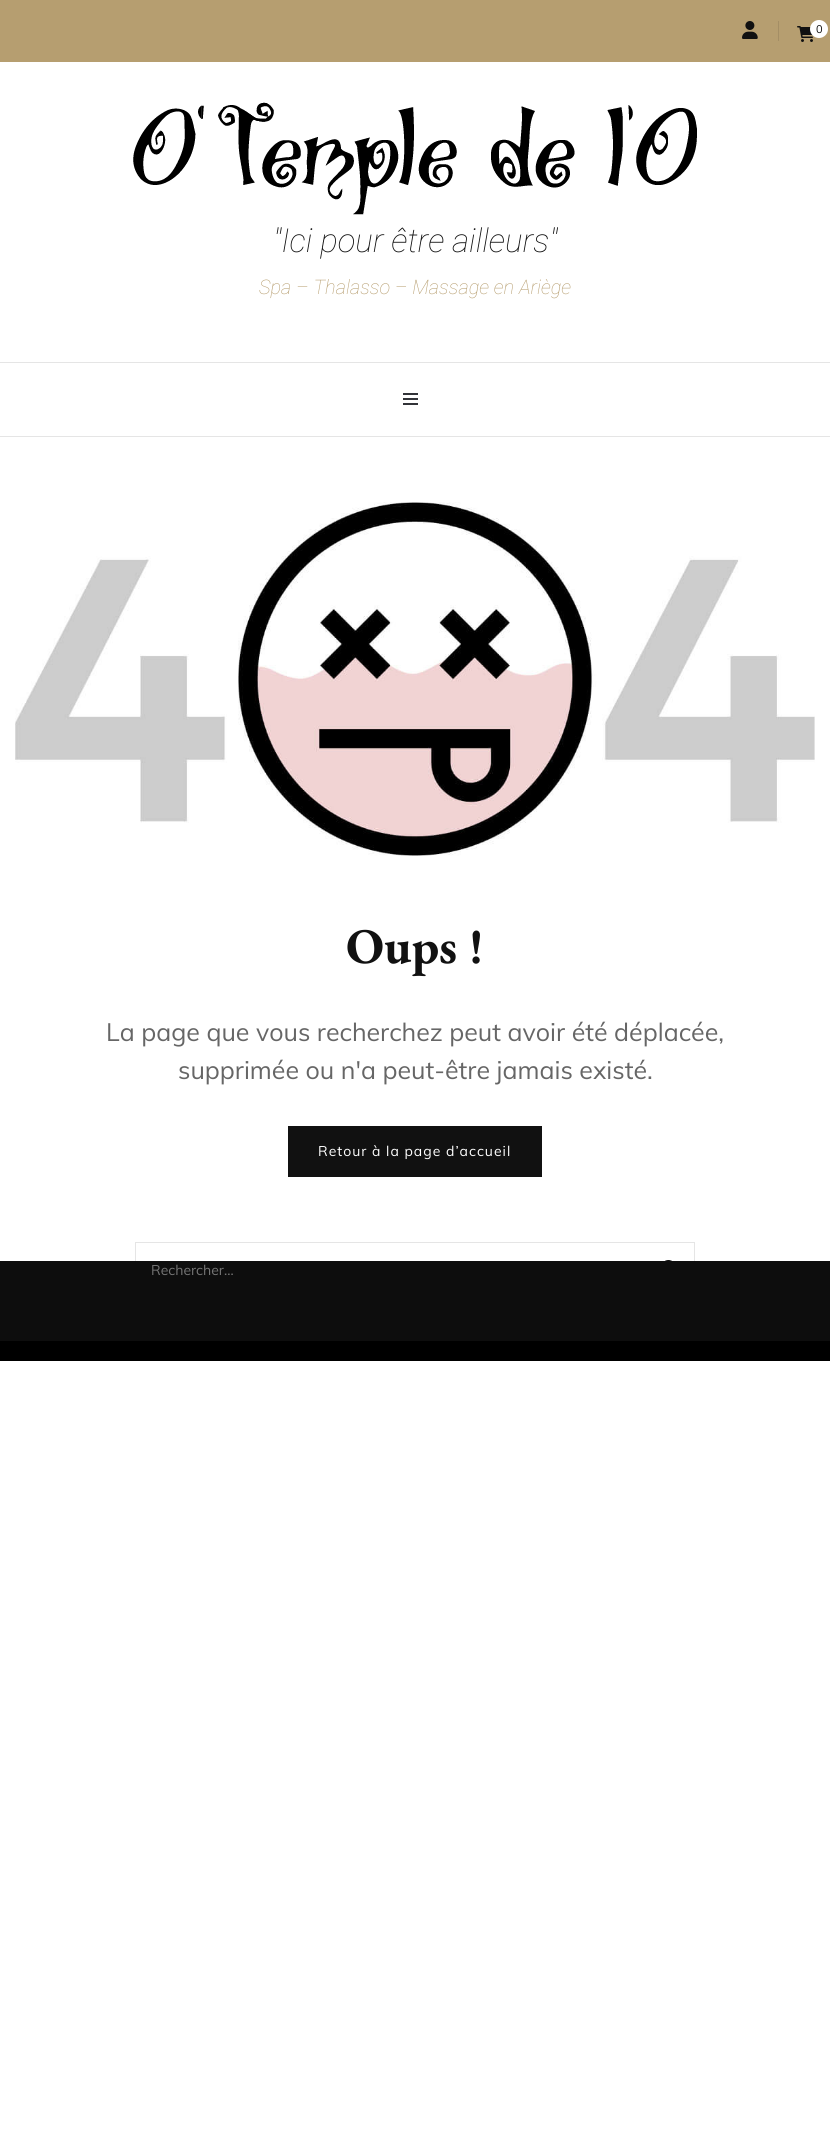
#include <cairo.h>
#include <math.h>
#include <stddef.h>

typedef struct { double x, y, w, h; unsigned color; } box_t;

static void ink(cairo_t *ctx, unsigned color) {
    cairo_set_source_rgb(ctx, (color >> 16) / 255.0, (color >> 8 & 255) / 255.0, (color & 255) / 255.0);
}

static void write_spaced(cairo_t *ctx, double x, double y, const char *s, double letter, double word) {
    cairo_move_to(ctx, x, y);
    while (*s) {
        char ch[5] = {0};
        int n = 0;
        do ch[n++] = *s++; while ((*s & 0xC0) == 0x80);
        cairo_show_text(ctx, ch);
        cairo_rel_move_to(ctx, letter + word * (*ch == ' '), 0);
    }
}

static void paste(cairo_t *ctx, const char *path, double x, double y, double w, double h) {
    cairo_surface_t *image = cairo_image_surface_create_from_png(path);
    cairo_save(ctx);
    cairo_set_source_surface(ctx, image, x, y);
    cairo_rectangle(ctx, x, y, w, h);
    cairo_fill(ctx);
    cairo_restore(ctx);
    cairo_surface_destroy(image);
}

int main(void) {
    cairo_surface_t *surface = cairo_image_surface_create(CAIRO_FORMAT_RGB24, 830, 2146);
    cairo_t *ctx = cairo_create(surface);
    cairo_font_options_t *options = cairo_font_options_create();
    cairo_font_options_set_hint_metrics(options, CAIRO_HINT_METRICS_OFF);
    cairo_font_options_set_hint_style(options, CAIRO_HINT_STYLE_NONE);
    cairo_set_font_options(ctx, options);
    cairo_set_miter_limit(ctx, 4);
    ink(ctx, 0xFFFFFF);
    cairo_paint(ctx);
    ink(ctx, 0xB69E70);
    cairo_rectangle(ctx, 0, 0, 830, 62);
    cairo_fill(ctx);
    paste(ctx, "media/1.png", 742, 21, 16, 18);
    ink(ctx, 0xA48E65);
    cairo_rectangle(ctx, 778, 21, 1, 20);
    cairo_fill(ctx);
    paste(ctx, "media/2.png", 797, 26, 16, 16);
    ink(ctx, 0xFFFFFF);
    cairo_arc(ctx, 819, 29, 9, 0, 2 * M_PI);
    cairo_fill(ctx);
    cairo_select_font_face(ctx, "Muli", CAIRO_FONT_SLANT_NORMAL, CAIRO_FONT_WEIGHT_NORMAL);
    cairo_set_font_size(ctx, 11);
    ink(ctx, 0x111111);
    cairo_move_to(ctx, 816, 33);
    cairo_show_text(ctx, "0");
    paste(ctx, "media/3.png", 133, 102, 564, 113);
    cairo_select_font_face(ctx, "Roboto Thin", CAIRO_FONT_SLANT_ITALIC, CAIRO_FONT_WEIGHT_NORMAL);
    cairo_set_font_size(ctx, 33);
    cairo_move_to(ctx, 273, 252);
    cairo_show_text(ctx, "\"Ici pour être ailleurs\"");
    cairo_set_font_size(ctx, 20);
    ink(ctx, 0xB59C6D);
    cairo_move_to(ctx, 259, 294);
    cairo_show_text(ctx, "Spa – Thalasso – Massage en Ariège");
    {
        static const box_t items[] = {
            {0, 362, 830, 1, 0xE5E5E5},
            {0, 436, 830, 1, 0xE5E5E5},
            {403, 398, 15, 2, 0x323338},
            {403, 393, 15, 2, 0x323338},
            {403, 403, 15, 2, 0x323338},
        };
        for (size_t i = 0; i < sizeof items / sizeof *items; i++) {
            ink(ctx, items[i].color);
            cairo_rectangle(ctx, items[i].x, items[i].y, items[i].w, items[i].h);
            cairo_fill(ctx);
        }
    }
    paste(ctx, "media/4.png", 15, 502, 800, 354);
    cairo_select_font_face(ctx, "EB Garamond", CAIRO_FONT_SLANT_NORMAL, CAIRO_FONT_WEIGHT_BOLD);
    cairo_set_font_size(ctx, 50);
    ink(ctx, 0x111111);
    cairo_move_to(ctx, 346, 963);
    cairo_show_text(ctx, "Oups !");
    cairo_select_font_face(ctx, "Muli", CAIRO_FONT_SLANT_NORMAL, CAIRO_FONT_WEIGHT_NORMAL);
    cairo_set_font_size(ctx, 25);
    ink(ctx, 0x666666);
    cairo_move_to(ctx, 106, 1041);
    cairo_show_text(ctx, "La page que vous recherchez peut avoir été déplacée,");
    cairo_move_to(ctx, 178, 1079);
    cairo_show_text(ctx, "supprimée ou n'a peut-être jamais existé.");
    ink(ctx, 0x111111);
    cairo_rectangle(ctx, 288, 1126, 254, 51);
    cairo_fill(ctx);
    cairo_set_font_size(ctx, 14);
    ink(ctx, 0xFFFFFF);
    write_spaced(ctx, 318, 1156, "Retour à la page d’accueil", 1, 0);
    cairo_rectangle(ctx, 135.5, 1242.5, 559, 53);
    ink(ctx, 0xE5E5E5);
    cairo_set_line_width(ctx, 1);
    cairo_stroke(ctx);
    paste(ctx, "media/5.png", 665, 1260, 7, 1);
    ink(ctx, 0x0D0D0D);
    cairo_rectangle(ctx, 0, 1261, 830, 80);
    cairo_fill(ctx);
    ink(ctx, 0x757575);
    cairo_move_to(ctx, 151, 1275);
    cairo_show_text(ctx, "Rechercher…");
    ink(ctx, 0x000000);
    cairo_rectangle(ctx, 0, 1341, 830, 20);
    cairo_fill(ctx);
    cairo_surface_write_to_png(surface, "image.png");
    cairo_font_options_destroy(options);
    cairo_destroy(ctx);
    cairo_surface_destroy(surface);
    return 0;
}
